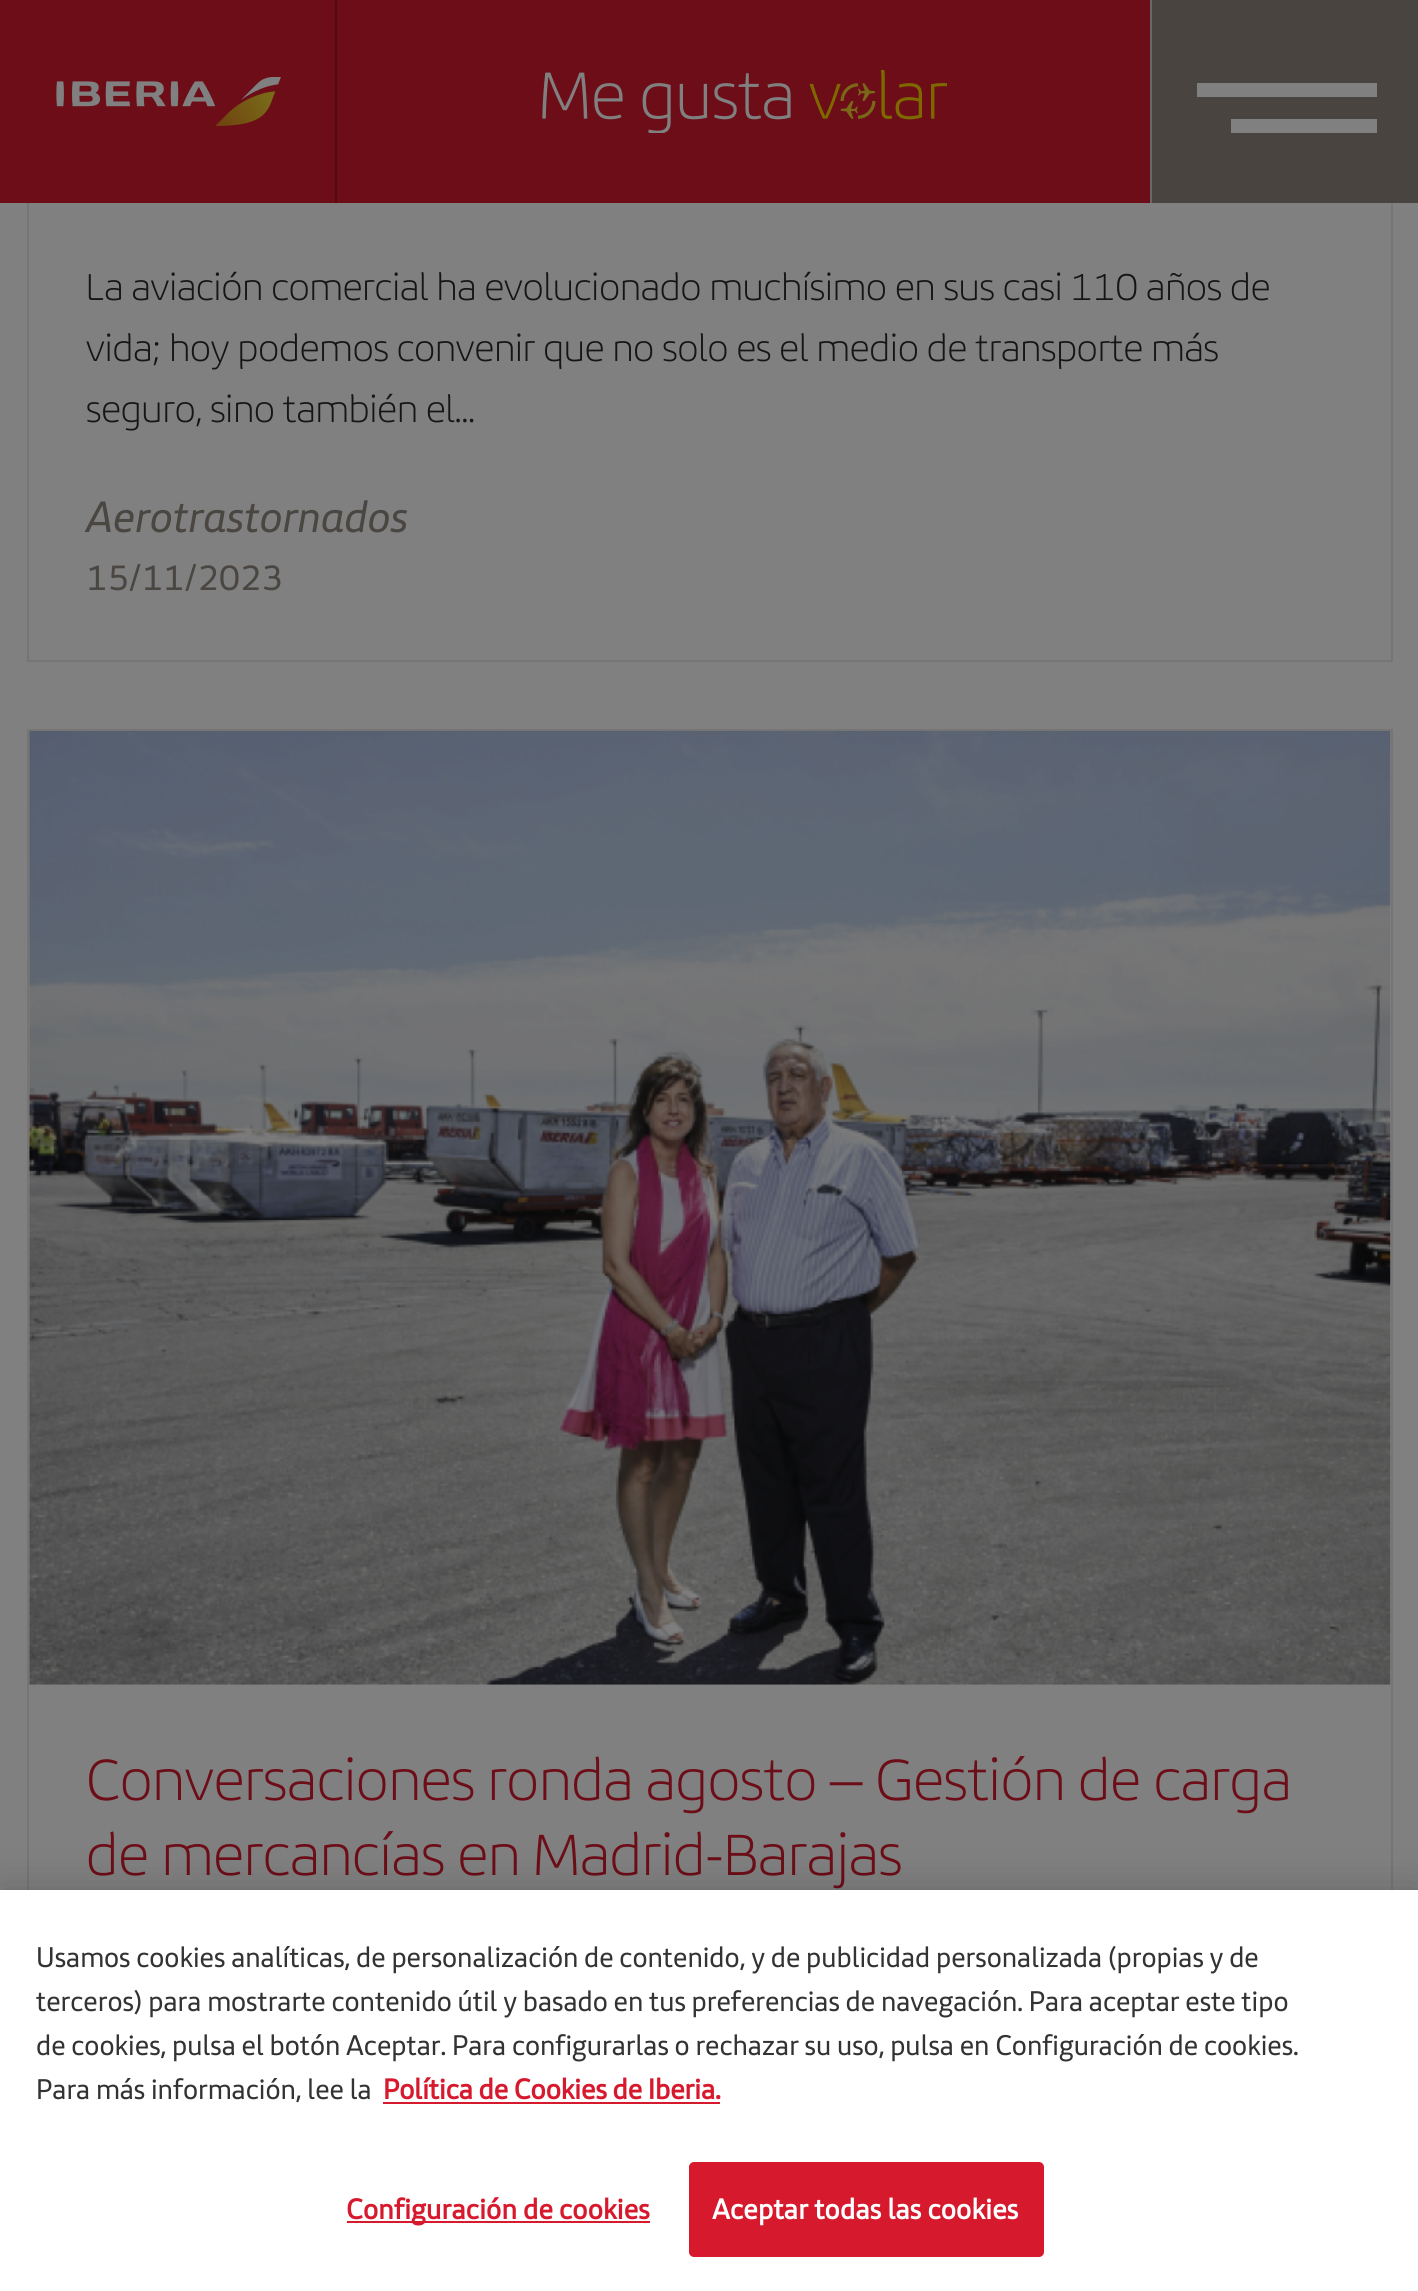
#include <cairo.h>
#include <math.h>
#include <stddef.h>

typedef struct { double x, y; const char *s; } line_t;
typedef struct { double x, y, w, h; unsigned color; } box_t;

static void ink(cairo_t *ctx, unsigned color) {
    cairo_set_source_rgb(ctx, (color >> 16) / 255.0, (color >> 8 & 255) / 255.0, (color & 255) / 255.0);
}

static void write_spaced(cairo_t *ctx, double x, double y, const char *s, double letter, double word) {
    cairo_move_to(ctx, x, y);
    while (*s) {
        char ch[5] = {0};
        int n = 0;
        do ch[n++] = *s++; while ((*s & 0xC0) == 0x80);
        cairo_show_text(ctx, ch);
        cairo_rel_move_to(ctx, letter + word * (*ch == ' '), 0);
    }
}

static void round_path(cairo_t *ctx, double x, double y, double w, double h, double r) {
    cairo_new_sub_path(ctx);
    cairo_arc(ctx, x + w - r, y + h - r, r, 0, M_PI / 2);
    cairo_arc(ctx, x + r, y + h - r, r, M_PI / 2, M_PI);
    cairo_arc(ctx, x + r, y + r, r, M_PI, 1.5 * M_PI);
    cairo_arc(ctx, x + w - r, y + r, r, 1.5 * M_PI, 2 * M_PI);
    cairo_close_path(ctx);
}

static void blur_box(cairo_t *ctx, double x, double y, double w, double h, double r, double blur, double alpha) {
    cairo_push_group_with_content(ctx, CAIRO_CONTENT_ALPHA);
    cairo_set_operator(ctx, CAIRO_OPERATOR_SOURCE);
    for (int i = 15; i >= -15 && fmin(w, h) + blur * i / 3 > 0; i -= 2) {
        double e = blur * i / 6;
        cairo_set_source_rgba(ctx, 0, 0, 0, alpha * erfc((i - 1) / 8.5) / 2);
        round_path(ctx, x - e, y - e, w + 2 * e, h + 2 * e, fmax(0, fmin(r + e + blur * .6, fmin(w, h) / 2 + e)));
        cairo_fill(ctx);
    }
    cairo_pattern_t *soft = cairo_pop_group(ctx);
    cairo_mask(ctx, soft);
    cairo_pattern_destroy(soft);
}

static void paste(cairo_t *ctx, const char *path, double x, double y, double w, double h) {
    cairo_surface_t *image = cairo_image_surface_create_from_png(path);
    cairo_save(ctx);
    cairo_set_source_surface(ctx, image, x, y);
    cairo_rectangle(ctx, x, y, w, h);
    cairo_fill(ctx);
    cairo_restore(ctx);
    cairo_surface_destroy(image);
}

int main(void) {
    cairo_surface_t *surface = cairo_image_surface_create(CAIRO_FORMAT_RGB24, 1418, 2291);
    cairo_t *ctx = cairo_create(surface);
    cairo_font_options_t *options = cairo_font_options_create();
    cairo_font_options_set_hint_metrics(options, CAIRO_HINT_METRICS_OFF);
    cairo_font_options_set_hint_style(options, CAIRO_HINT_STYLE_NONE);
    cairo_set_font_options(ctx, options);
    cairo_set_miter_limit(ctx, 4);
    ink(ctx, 0x808080);
    cairo_paint(ctx);
    cairo_rectangle(ctx, 28, -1, 1364, 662);
    ink(ctx, 0x767574);
    cairo_stroke(ctx);
    ink(ctx, 0x6C0D17);
    cairo_rectangle(ctx, 0, 0, 1150, 203);
    cairo_fill(ctx);
    ink(ctx, 0x540810);
    cairo_rectangle(ctx, 335, 0, 2, 203);
    cairo_fill(ctx);
    paste(ctx, "media/1.png", 56, 77, 225, 49);
    paste(ctx, "media/2.png", 542, 70, 405, 63);
    {
        static const box_t items[] = {
            {1152, 0, 266, 203, 0x4A4441},
            {1150, 0, 2, 203, 0x6A6764},
            {1197, 83, 180, 14, 0x808080},
            {1231, 119, 146, 14, 0x808080},
        };
        for (size_t i = 0; i < sizeof items / sizeof *items; i++) {
            ink(ctx, items[i].color);
            cairo_rectangle(ctx, items[i].x, items[i].y, items[i].w, items[i].h);
            cairo_fill(ctx);
        }
    }
    cairo_select_font_face(ctx, "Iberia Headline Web", CAIRO_FONT_SLANT_NORMAL, CAIRO_FONT_WEIGHT_NORMAL);
    cairo_set_font_size(ctx, 40.5);
    ink(ctx, 0x151515);
    {
        static const line_t items[] = {
            {86, 300, "La aviación comercial ha evolucionado muchísimo en sus casi 110 años de"},
            {86, 361, "vida; hoy podemos convenir que no solo es el medio de transporte más"},
            {86, 422, "seguro, sino también el..."},
        };
        for (size_t i = 0; i < sizeof items / sizeof *items; i++) {
            cairo_move_to(ctx, items[i].x, items[i].y);
            cairo_show_text(ctx, items[i].s);
        }
    }
    cairo_select_font_face(ctx, "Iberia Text", CAIRO_FONT_SLANT_ITALIC, CAIRO_FONT_WEIGHT_NORMAL);
    cairo_set_font_size(ctx, 45);
    ink(ctx, 0x4A4641);
    cairo_move_to(ctx, 86, 532);
    cairo_show_text(ctx, "Aerotrastornados");
    cairo_select_font_face(ctx, "Iberia Text", CAIRO_FONT_SLANT_NORMAL, CAIRO_FONT_WEIGHT_NORMAL);
    cairo_set_font_size(ctx, 36);
    cairo_move_to(ctx, 86, 590);
    cairo_show_text(ctx, "15/11/2023");
    cairo_rectangle(ctx, 28, 730, 1364, 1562);
    ink(ctx, 0x767574);
    cairo_stroke(ctx);
    paste(ctx, "media/3.png", 29, 731, 1362, 954);
    cairo_select_font_face(ctx, "Iberia Headline Web", CAIRO_FONT_SLANT_NORMAL, CAIRO_FONT_WEIGHT_NORMAL);
    cairo_set_font_size(ctx, 63);
    ink(ctx, 0x6C0D17);
    cairo_move_to(ctx, 86, 1800);
    cairo_show_text(ctx, "Conversaciones ronda agosto – Gestión de carga");
    cairo_move_to(ctx, 86, 1875);
    cairo_show_text(ctx, "de mercancías en Madrid-Barajas");
    ink(ctx, 0x000000);
    blur_box(ctx, 0, 1890, 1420, 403, 0, 20, 0.2);
    ink(ctx, 0xFFFFFF);
    cairo_rectangle(ctx, 0, 1890, 1418, 401);
    cairo_fill(ctx);
    cairo_select_font_face(ctx, "Iberia Text", CAIRO_FONT_SLANT_NORMAL, CAIRO_FONT_WEIGHT_NORMAL);
    cairo_set_font_size(ctx, 29.25);
    ink(ctx, 0x333333);
    {
        static const line_t items[] = {
            {36, 1967, "Usamos cookies analíticas, de personalización de contenido, y de publicidad personalizada (propias y de"},
            {36, 2011, "terceros) para mostrarte contenido útil y basado en tus preferencias de navegación. Para aceptar este tipo"},
            {36, 2055, "de cookies, pulsa el botón Aceptar. Para configurarlas o rechazar su uso, pulsa en Configuración de cookies."},
            {36, 2099, "Para más información, lee la"},
        };
        for (size_t i = 0; i < sizeof items / sizeof *items; i++) {
            cairo_move_to(ctx, items[i].x, items[i].y);
            cairo_show_text(ctx, items[i].s);
        }
    }
    cairo_select_font_face(ctx, "Iberia Text", CAIRO_FONT_SLANT_NORMAL, CAIRO_FONT_WEIGHT_BOLD);
    ink(ctx, 0xD7192D);
    cairo_move_to(ctx, 383, 2099);
    cairo_show_text(ctx, "Política de Cookies de Iberia.");
    cairo_rectangle(ctx, 383, 2102, 337, 2);
    cairo_fill(ctx);
    cairo_rectangle(ctx, 347, 2221, 303, 2);
    cairo_fill(ctx);
    write_spaced(ctx, 346, 2219, "Configuración de cookies", 0.25, 0);
    round_path(ctx, 690, 2163, 353, 93, 4);
    cairo_fill_preserve(ctx);
    cairo_stroke(ctx);
    ink(ctx, 0xFFFFFF);
    write_spaced(ctx, 712, 2219, "Aceptar todas las cookies", 0.25, 0);
    cairo_surface_write_to_png(surface, "image.png");
    cairo_font_options_destroy(options);
    cairo_destroy(ctx);
    cairo_surface_destroy(surface);
    return 0;
}
